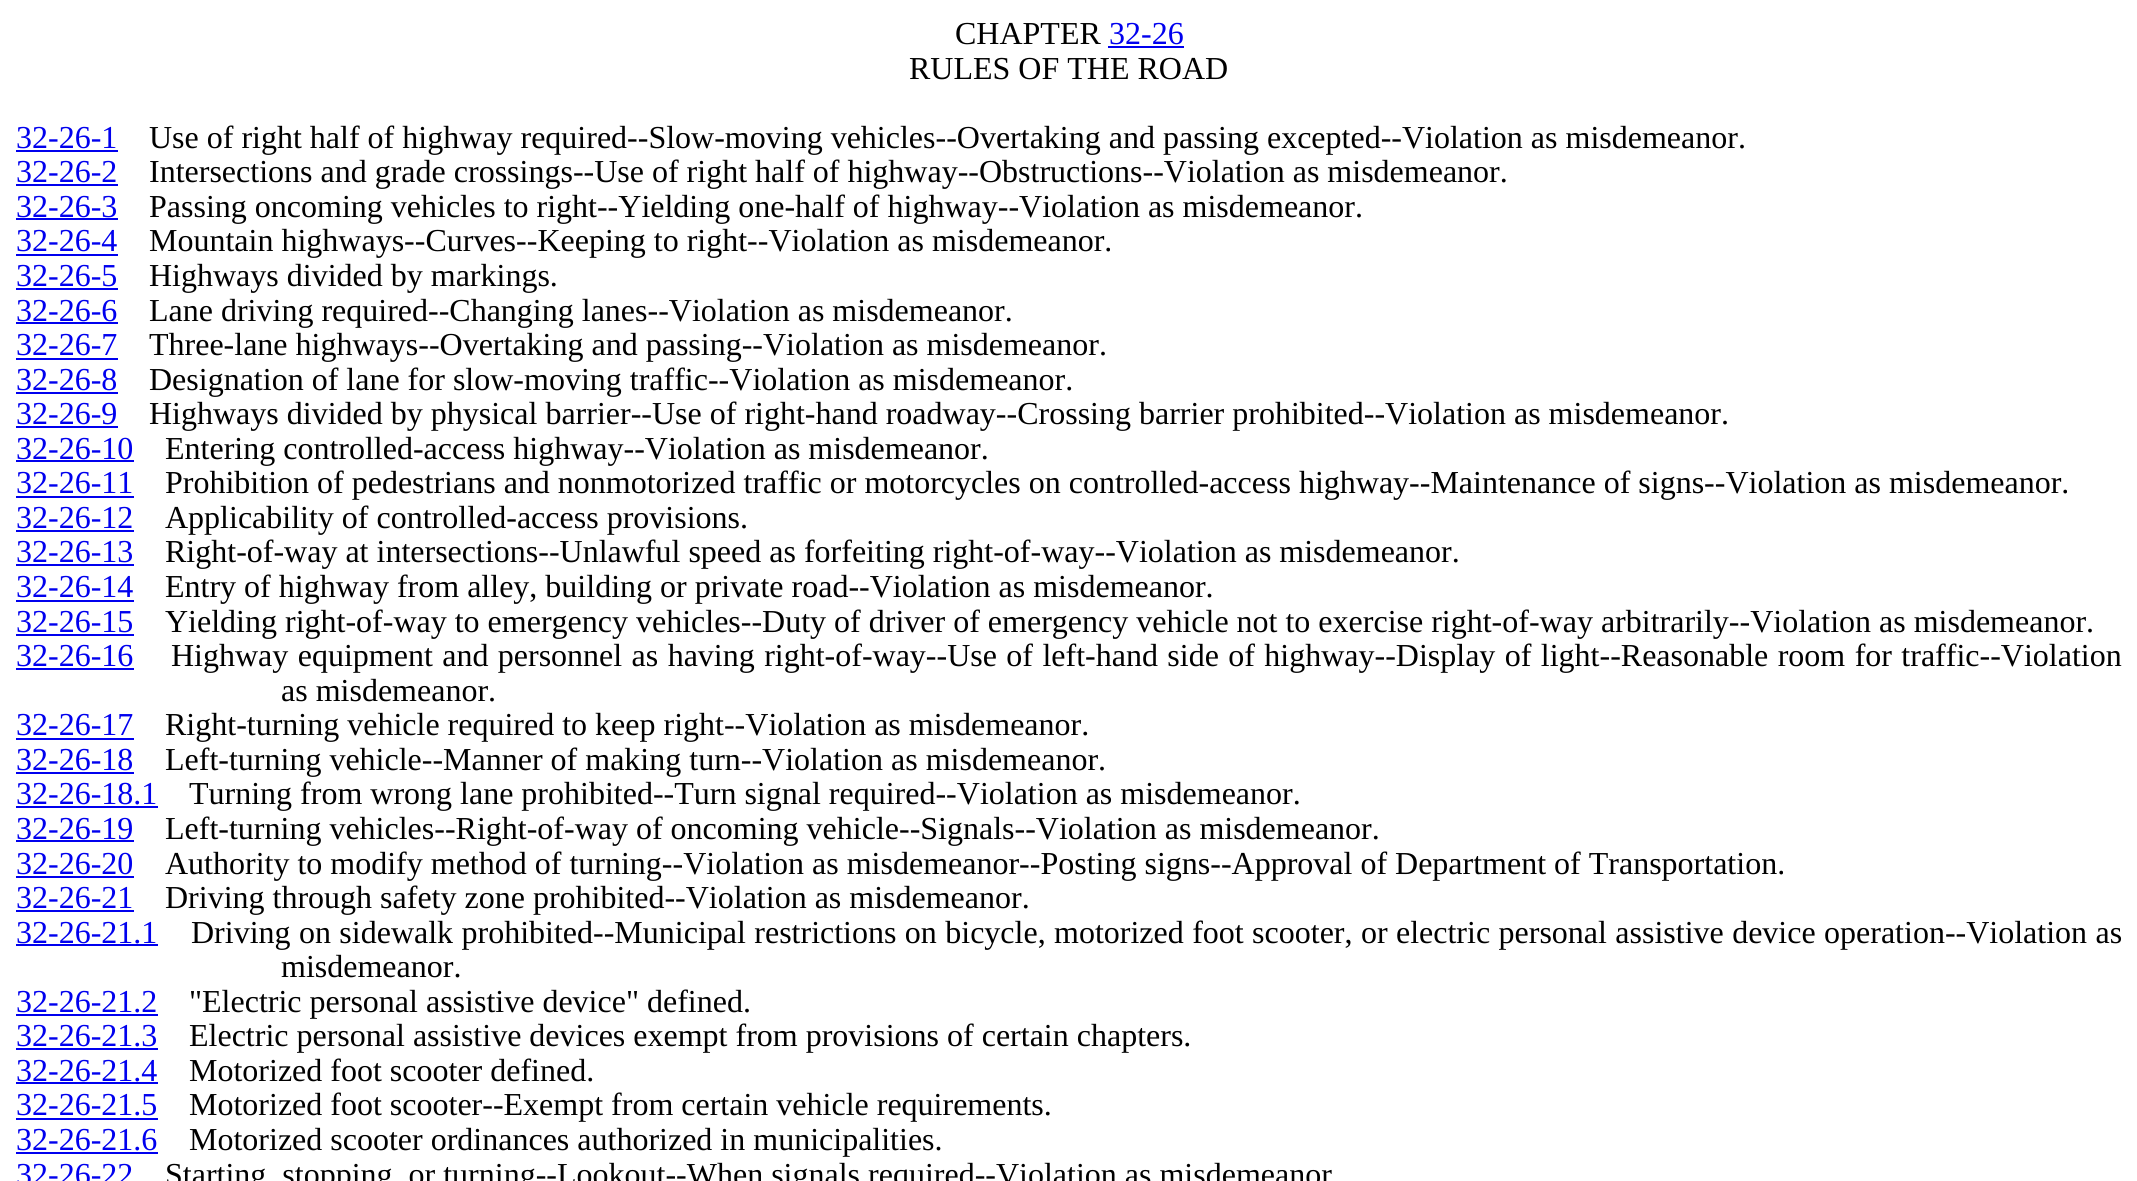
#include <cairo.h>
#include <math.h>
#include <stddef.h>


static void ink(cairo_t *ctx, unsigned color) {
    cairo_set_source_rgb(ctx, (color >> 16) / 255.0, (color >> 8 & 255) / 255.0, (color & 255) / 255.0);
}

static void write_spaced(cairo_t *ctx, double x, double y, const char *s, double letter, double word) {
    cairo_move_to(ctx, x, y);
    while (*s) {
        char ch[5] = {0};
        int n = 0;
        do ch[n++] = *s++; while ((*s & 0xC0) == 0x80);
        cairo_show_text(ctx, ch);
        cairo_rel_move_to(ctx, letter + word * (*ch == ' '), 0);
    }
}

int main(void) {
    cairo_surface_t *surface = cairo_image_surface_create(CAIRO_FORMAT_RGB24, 2137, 1181);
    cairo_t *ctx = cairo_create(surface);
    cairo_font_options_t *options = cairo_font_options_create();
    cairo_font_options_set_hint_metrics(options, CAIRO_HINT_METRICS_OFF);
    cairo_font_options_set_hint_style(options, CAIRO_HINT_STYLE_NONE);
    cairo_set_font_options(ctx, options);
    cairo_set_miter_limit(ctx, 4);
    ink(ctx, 0xFFFFFF);
    cairo_paint(ctx);
    cairo_select_font_face(ctx, "Liberation Serif", CAIRO_FONT_SLANT_NORMAL, CAIRO_FONT_WEIGHT_NORMAL);
    cairo_set_font_size(ctx, 32);
    ink(ctx, 0x000000);
    cairo_move_to(ctx, 955, 44);
    cairo_show_text(ctx, "CHAPTER");
    ink(ctx, 0x0000EE);
    cairo_move_to(ctx, 1109, 44);
    cairo_show_text(ctx, "32-26");
    cairo_rectangle(ctx, 1108, 46, 76, 2);
    cairo_fill(ctx);
    ink(ctx, 0x000000);
    cairo_move_to(ctx, 909, 79);
    cairo_show_text(ctx, "RULES OF THE ROAD");
    ink(ctx, 0x0000EE);
    cairo_move_to(ctx, 16, 148);
    cairo_show_text(ctx, "32-26-1");
    cairo_rectangle(ctx, 16, 150, 102, 2);
    cairo_fill(ctx);
    ink(ctx, 0x000000);
    cairo_move_to(ctx, 149, 148);
    cairo_show_text(ctx, "Use of right half of highway required--Slow-moving vehicles--Overtaking and passing excepted--Violation as misdemeanor.");
    ink(ctx, 0x0000EE);
    cairo_move_to(ctx, 16, 182);
    cairo_show_text(ctx, "32-26-2");
    cairo_rectangle(ctx, 16, 184, 102, 2);
    cairo_fill(ctx);
    ink(ctx, 0x000000);
    cairo_move_to(ctx, 149, 182);
    cairo_show_text(ctx, "Intersections and grade crossings--Use of right half of highway--Obstructions--Violation as misdemeanor.");
    ink(ctx, 0x0000EE);
    cairo_move_to(ctx, 16, 217);
    cairo_show_text(ctx, "32-26-3");
    cairo_rectangle(ctx, 16, 218, 102, 2);
    cairo_fill(ctx);
    ink(ctx, 0x000000);
    cairo_move_to(ctx, 149, 217);
    cairo_show_text(ctx, "Passing oncoming vehicles to right--Yielding one-half of highway--Violation as misdemeanor.");
    ink(ctx, 0x0000EE);
    cairo_move_to(ctx, 16, 251);
    cairo_show_text(ctx, "32-26-4");
    cairo_rectangle(ctx, 16, 254, 102, 2);
    cairo_fill(ctx);
    ink(ctx, 0x000000);
    cairo_move_to(ctx, 149, 251);
    cairo_show_text(ctx, "Mountain highways--Curves--Keeping to right--Violation as misdemeanor.");
    ink(ctx, 0x0000EE);
    cairo_move_to(ctx, 16, 286);
    cairo_show_text(ctx, "32-26-5");
    cairo_rectangle(ctx, 16, 288, 102, 2);
    cairo_fill(ctx);
    ink(ctx, 0x000000);
    cairo_move_to(ctx, 149, 286);
    cairo_show_text(ctx, "Highways divided by markings.");
    ink(ctx, 0x0000EE);
    cairo_move_to(ctx, 16, 321);
    cairo_show_text(ctx, "32-26-6");
    cairo_rectangle(ctx, 16, 322, 102, 2);
    cairo_fill(ctx);
    ink(ctx, 0x000000);
    cairo_move_to(ctx, 149, 321);
    cairo_show_text(ctx, "Lane driving required--Changing lanes--Violation as misdemeanor.");
    ink(ctx, 0x0000EE);
    cairo_move_to(ctx, 16, 355);
    cairo_show_text(ctx, "32-26-7");
    cairo_rectangle(ctx, 16, 358, 102, 2);
    cairo_fill(ctx);
    ink(ctx, 0x000000);
    cairo_move_to(ctx, 149, 355);
    cairo_show_text(ctx, "Three-lane highways--Overtaking and passing--Violation as misdemeanor.");
    ink(ctx, 0x0000EE);
    cairo_move_to(ctx, 16, 390);
    cairo_show_text(ctx, "32-26-8");
    cairo_rectangle(ctx, 16, 392, 102, 2);
    cairo_fill(ctx);
    ink(ctx, 0x000000);
    cairo_move_to(ctx, 149, 390);
    cairo_show_text(ctx, "Designation of lane for slow-moving traffic--Violation as misdemeanor.");
    ink(ctx, 0x0000EE);
    cairo_move_to(ctx, 16, 424);
    cairo_show_text(ctx, "32-26-9");
    cairo_rectangle(ctx, 16, 426, 102, 2);
    cairo_fill(ctx);
    ink(ctx, 0x000000);
    cairo_move_to(ctx, 149, 424);
    cairo_show_text(ctx, "Highways divided by physical barrier--Use of right-hand roadway--Crossing barrier prohibited--Violation as misdemeanor.");
    ink(ctx, 0x0000EE);
    cairo_move_to(ctx, 16, 459);
    cairo_show_text(ctx, "32-26-10");
    cairo_rectangle(ctx, 16, 460, 118, 2);
    cairo_fill(ctx);
    ink(ctx, 0x000000);
    cairo_move_to(ctx, 165, 459);
    cairo_show_text(ctx, "Entering controlled-access highway--Violation as misdemeanor.");
    ink(ctx, 0x0000EE);
    cairo_move_to(ctx, 16, 493);
    cairo_show_text(ctx, "32-26-11");
    cairo_rectangle(ctx, 16, 496, 118, 2);
    cairo_fill(ctx);
    ink(ctx, 0x000000);
    cairo_move_to(ctx, 165, 493);
    cairo_show_text(ctx, "Prohibition of pedestrians and nonmotorized traffic or motorcycles on controlled-access highway--Maintenance of signs--Violation as misdemeanor.");
    ink(ctx, 0x0000EE);
    cairo_move_to(ctx, 16, 528);
    cairo_show_text(ctx, "32-26-12");
    cairo_rectangle(ctx, 16, 530, 118, 2);
    cairo_fill(ctx);
    ink(ctx, 0x000000);
    cairo_move_to(ctx, 165, 528);
    cairo_show_text(ctx, "Applicability of controlled-access provisions.");
    ink(ctx, 0x0000EE);
    cairo_move_to(ctx, 16, 562);
    cairo_show_text(ctx, "32-26-13");
    cairo_rectangle(ctx, 16, 564, 118, 2);
    cairo_fill(ctx);
    ink(ctx, 0x000000);
    cairo_move_to(ctx, 165, 562);
    cairo_show_text(ctx, "Right-of-way at intersections--Unlawful speed as forfeiting right-of-way--Violation as misdemeanor.");
    ink(ctx, 0x0000EE);
    cairo_move_to(ctx, 16, 597);
    cairo_show_text(ctx, "32-26-14");
    cairo_rectangle(ctx, 16, 600, 118, 2);
    cairo_fill(ctx);
    ink(ctx, 0x000000);
    cairo_move_to(ctx, 165, 597);
    cairo_show_text(ctx, "Entry of highway from alley, building or private road--Violation as misdemeanor.");
    ink(ctx, 0x0000EE);
    cairo_move_to(ctx, 16, 632);
    cairo_show_text(ctx, "32-26-15");
    cairo_rectangle(ctx, 16, 634, 118, 2);
    cairo_fill(ctx);
    ink(ctx, 0x000000);
    cairo_move_to(ctx, 165, 632);
    cairo_show_text(ctx, "Yielding right-of-way to emergency vehicles--Duty of driver of emergency vehicle not to exercise right-of-way arbitrarily--Violation as misdemeanor.");
    ink(ctx, 0x0000EE);
    cairo_move_to(ctx, 16, 666);
    cairo_show_text(ctx, "32-26-16");
    cairo_rectangle(ctx, 16, 668, 118, 2);
    cairo_fill(ctx);
    ink(ctx, 0x000000);
    write_spaced(ctx, 171, 666, "Highway equipment and personnel as having right-of-way--Use of left-hand side of highway--Display of light--Reasonable room for traffic--Violation", 0, 1.4);
    cairo_move_to(ctx, 281, 701);
    cairo_show_text(ctx, "as misdemeanor.");
    ink(ctx, 0x0000EE);
    cairo_move_to(ctx, 16, 735);
    cairo_show_text(ctx, "32-26-17");
    cairo_rectangle(ctx, 16, 738, 118, 2);
    cairo_fill(ctx);
    ink(ctx, 0x000000);
    cairo_move_to(ctx, 165, 735);
    cairo_show_text(ctx, "Right-turning vehicle required to keep right--Violation as misdemeanor.");
    ink(ctx, 0x0000EE);
    cairo_move_to(ctx, 16, 770);
    cairo_show_text(ctx, "32-26-18");
    cairo_rectangle(ctx, 16, 772, 118, 2);
    cairo_fill(ctx);
    ink(ctx, 0x000000);
    cairo_move_to(ctx, 165, 770);
    cairo_show_text(ctx, "Left-turning vehicle--Manner of making turn--Violation as misdemeanor.");
    ink(ctx, 0x0000EE);
    cairo_move_to(ctx, 16, 804);
    cairo_show_text(ctx, "32-26-18.1");
    cairo_rectangle(ctx, 16, 806, 142, 2);
    cairo_fill(ctx);
    ink(ctx, 0x000000);
    cairo_move_to(ctx, 189, 804);
    cairo_show_text(ctx, "Turning from wrong lane prohibited--Turn signal required--Violation as misdemeanor.");
    ink(ctx, 0x0000EE);
    cairo_move_to(ctx, 16, 839);
    cairo_show_text(ctx, "32-26-19");
    cairo_rectangle(ctx, 16, 840, 118, 2);
    cairo_fill(ctx);
    ink(ctx, 0x000000);
    cairo_move_to(ctx, 165, 839);
    cairo_show_text(ctx, "Left-turning vehicles--Right-of-way of oncoming vehicle--Signals--Violation as misdemeanor.");
    ink(ctx, 0x0000EE);
    cairo_move_to(ctx, 16, 874);
    cairo_show_text(ctx, "32-26-20");
    cairo_rectangle(ctx, 16, 876, 118, 2);
    cairo_fill(ctx);
    ink(ctx, 0x000000);
    cairo_move_to(ctx, 165, 874);
    cairo_show_text(ctx, "Authority to modify method of turning--Violation as misdemeanor--Posting signs--Approval of Department of Transportation.");
    ink(ctx, 0x0000EE);
    cairo_move_to(ctx, 16, 908);
    cairo_show_text(ctx, "32-26-21");
    cairo_rectangle(ctx, 16, 910, 118, 2);
    cairo_fill(ctx);
    ink(ctx, 0x000000);
    cairo_move_to(ctx, 165, 908);
    cairo_show_text(ctx, "Driving through safety zone prohibited--Violation as misdemeanor.");
    ink(ctx, 0x0000EE);
    cairo_move_to(ctx, 16, 943);
    cairo_show_text(ctx, "32-26-21.1");
    cairo_rectangle(ctx, 16, 944, 142, 2);
    cairo_fill(ctx);
    ink(ctx, 0x000000);
    write_spaced(ctx, 191, 943, "Driving on sidewalk prohibited--Municipal restrictions on bicycle, motorized foot scooter, or electric personal assistive device operation--Violation as", 0, 0.4);
    cairo_move_to(ctx, 281, 977);
    cairo_show_text(ctx, "misdemeanor.");
    ink(ctx, 0x0000EE);
    cairo_move_to(ctx, 16, 1012);
    cairo_show_text(ctx, "32-26-21.2");
    cairo_rectangle(ctx, 16, 1014, 142, 2);
    cairo_fill(ctx);
    ink(ctx, 0x000000);
    cairo_move_to(ctx, 189, 1012);
    cairo_show_text(ctx, "\"Electric personal assistive device\" defined.");
    ink(ctx, 0x0000EE);
    cairo_move_to(ctx, 16, 1046);
    cairo_show_text(ctx, "32-26-21.3");
    cairo_rectangle(ctx, 16, 1048, 142, 2);
    cairo_fill(ctx);
    ink(ctx, 0x000000);
    cairo_move_to(ctx, 189, 1046);
    cairo_show_text(ctx, "Electric personal assistive devices exempt from provisions of certain chapters.");
    ink(ctx, 0x0000EE);
    cairo_move_to(ctx, 16, 1081);
    cairo_show_text(ctx, "32-26-21.4");
    cairo_rectangle(ctx, 16, 1082, 142, 2);
    cairo_fill(ctx);
    ink(ctx, 0x000000);
    cairo_move_to(ctx, 189, 1081);
    cairo_show_text(ctx, "Motorized foot scooter defined.");
    ink(ctx, 0x0000EE);
    cairo_move_to(ctx, 16, 1115);
    cairo_show_text(ctx, "32-26-21.5");
    cairo_rectangle(ctx, 16, 1118, 142, 2);
    cairo_fill(ctx);
    ink(ctx, 0x000000);
    cairo_move_to(ctx, 189, 1115);
    cairo_show_text(ctx, "Motorized foot scooter--Exempt from certain vehicle requirements.");
    ink(ctx, 0x0000EE);
    cairo_move_to(ctx, 16, 1150);
    cairo_show_text(ctx, "32-26-21.6");
    cairo_rectangle(ctx, 16, 1152, 142, 2);
    cairo_fill(ctx);
    ink(ctx, 0x000000);
    cairo_move_to(ctx, 189, 1150);
    cairo_show_text(ctx, "Motorized scooter ordinances authorized in municipalities.");
    ink(ctx, 0x0000EE);
    cairo_move_to(ctx, 16, 1185);
    cairo_show_text(ctx, "32-26-22");
    ink(ctx, 0x000000);
    cairo_move_to(ctx, 165, 1185);
    cairo_show_text(ctx, "Starting, stopping, or turning--Lookout--When signals required--Violation as misdemeanor");
    cairo_surface_write_to_png(surface, "image.png");
    cairo_font_options_destroy(options);
    cairo_destroy(ctx);
    cairo_surface_destroy(surface);
    return 0;
}
